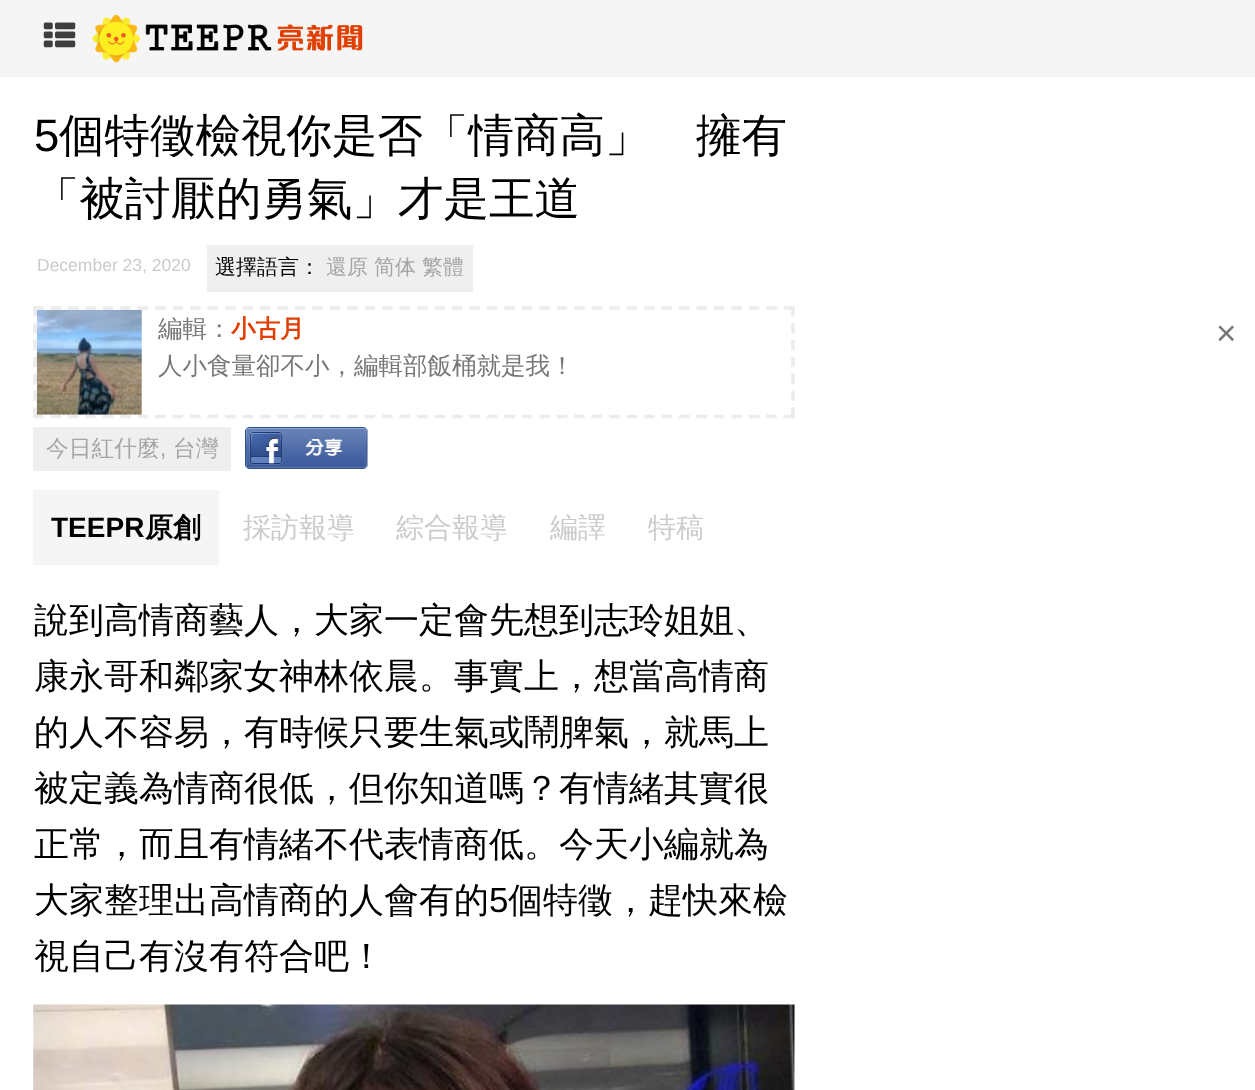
<svg xmlns="http://www.w3.org/2000/svg" width="1255" height="1090">
	<rect width="100%" height="100%" fill="#FFFFFF" />
	<rect x="0" y="0" width="1255" height="77" fill="#F5F5F5" />
	<image x="43" y="22" width="33" height="26" href="assets/img1.png" />
	<image x="92" y="14" width="271" height="49" href="assets/img2.png" />
	<text x="34" y="151" font-family="Liberation Sans" font-size="45.5" fill="#000000">5</text>
	<g font-family="WenQuanYi Zen Hei" font-size="45.5" font-weight="500" fill="#000000">
		<text x="59" y="151">個特徵檢視你是否「情商高」　擁有</text>
		<text x="34" y="214">「被討厭的勇氣」才是王道</text>
	</g>
	<text x="37" y="271" font-family="Liberation Sans" font-size="17.5" fill="#CBCBCB">December 23, 2020</text>
	<rect x="207" y="245" width="266" height="47" fill="#EFEFEF" />
	<text x="215" y="274" font-family="WenQuanYi Zen Hei" font-size="21" font-weight="500" fill="#000000">選擇語言：</text>
	<g font-family="WenQuanYi Zen Hei" font-size="21" font-weight="500" fill="#A5A5A5">
		<text x="326" y="274">還原</text>
		<text x="374" y="274">简体</text>
		<text x="422" y="274">繁體</text>
	</g>
	<path d="M33 308H794.5" fill="none" stroke="#ECECEC" stroke-width="3.5" stroke-dasharray="10.5 6.96" />
	<path d="M793 306V418" fill="none" stroke="#ECECEC" stroke-width="3.5" stroke-dasharray="10.5 6.42" />
	<path d="M33 416.5H794.5" fill="none" stroke="#ECECEC" stroke-width="3.5" stroke-dasharray="10.5 6.96" />
	<path d="M35 306V418" fill="none" stroke="#ECECEC" stroke-width="3.5" stroke-dasharray="10.5 6.42" />
	<image x="36" y="309" width="106" height="106" href="assets/img3.png" />
	<text x="158" y="337" font-family="WenQuanYi Zen Hei" font-size="24.5" font-weight="500" fill="#777777">編輯：</text>
	<text x="231" y="337" font-family="WenQuanYi Zen Hei" font-size="24.5" font-weight="700" fill="#E03F00">小古月</text>
	<text x="158" y="374" font-family="WenQuanYi Zen Hei" font-size="24.5" font-weight="500" fill="#777777">人小食量卻不小，編輯部飯桶就是我！</text>
	<rect x="33" y="427" width="198" height="44" fill="#EFEFEF" />
	<text x="46" y="456" font-family="WenQuanYi Zen Hei" font-size="22.75" font-weight="500" fill="#A5A5A5">今日紅什麼</text>
	<text x="160" y="456" font-family="Liberation Sans" font-size="22.75" fill="#A5A5A5">,</text>
	<text x="173" y="456" font-family="WenQuanYi Zen Hei" font-size="22.75" font-weight="500" fill="#A5A5A5">台灣</text>
	<image x="245" y="427" width="123" height="42" href="assets/img4.png" />
	<rect x="33" y="490" width="186" height="75" fill="#F5F5F5" />
	<text x="51" y="537" font-family="Liberation Sans" font-size="28" font-weight="700" fill="#000000">TEEPR</text>
	<text x="145" y="537" font-family="WenQuanYi Zen Hei" font-size="28" font-weight="700" fill="#000000">原創</text>
	<g font-family="WenQuanYi Zen Hei" font-size="28" font-weight="500" fill="#CBCBCB">
		<text x="243" y="537">採訪報導</text>
		<text x="396" y="537">綜合報導</text>
		<text x="550" y="537">編譯</text>
		<text x="648" y="537">特稿</text>
	</g>
	<g font-family="WenQuanYi Zen Hei" font-size="35" font-weight="500" fill="#000000">
		<text x="34" y="632">說到高情商藝人，大家一定會先想到志玲姐姐、</text>
		<text x="34" y="688">康永哥和鄰家女神林依晨。事實上，想當高情商</text>
		<text x="34" y="744">的人不容易，有時候只要生氣或鬧脾氣，就馬上</text>
		<text x="34" y="800">被定義為情商很低，但你知道嗎？有情緒其實很</text>
		<text x="34" y="856">正常，而且有情緒不代表情商低。今天小編就為</text>
		<text x="34" y="912">大家整理出高情商的人會有的</text>
	</g>
	<text x="489" y="912" font-family="Liberation Sans" font-size="35" fill="#000000">5</text>
	<g font-family="WenQuanYi Zen Hei" font-size="35" font-weight="500" fill="#000000">
		<text x="508" y="912">個特徵，趕快來檢</text>
		<text x="34" y="968">視自己有沒有符合吧！</text>
	</g>
	<image x="33" y="1004" width="762" height="86" href="assets/img5.png" />
	<text x="1216" y="345" font-family="Liberation Sans" font-size="35" fill="#777777">×</text>
</svg>
